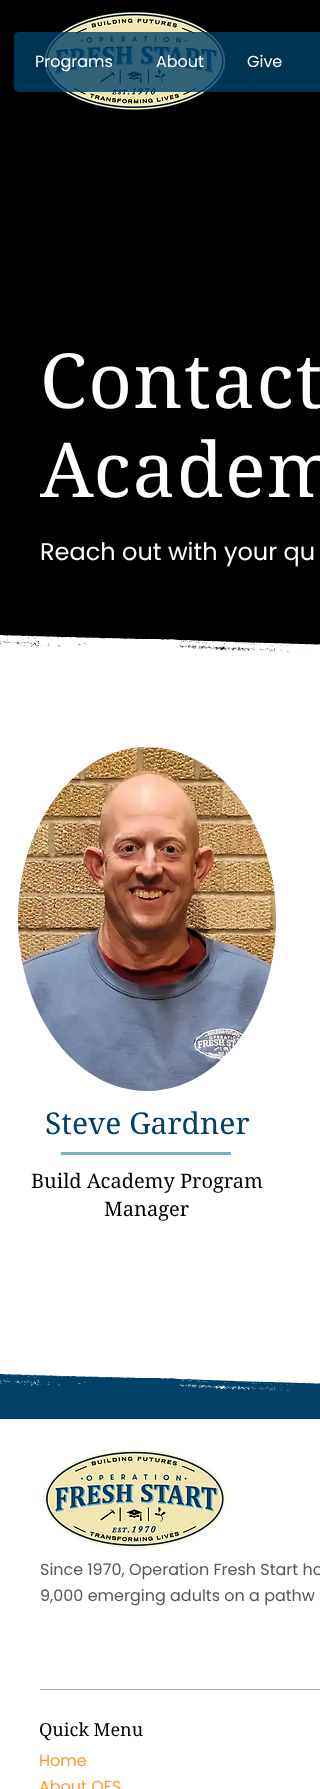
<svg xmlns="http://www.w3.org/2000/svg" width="320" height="1789">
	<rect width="100%" height="100%" fill="#FFFFFF" />
	<rect x="0" y="0" width="320" height="652" fill="#000000" />
	<image x="44" y="12" width="182" height="98" href="assets/img1.png" />
	<rect x="14" y="32" width="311" height="60" rx="5" fill="#00416A" fill-opacity="0.8" />
	<g font-family="Poppins" font-size="16" fill="#FFFFFF">
		<text x="35" y="67">Programs</text>
		<text x="156" y="67">About</text>
		<text x="247" y="67">Give</text>
	</g>
	<g font-family="'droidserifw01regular'" font-size="76" letter-spacing="1.5" fill="#FFFFFF">
		<text x="40" y="408">Contact</text>
		<text x="40" y="497">Academ</text>
	</g>
	<text x="40" y="560" font-family="Poppins" font-size="24" fill="#FFFFFF">Reach out with your qu</text>
	<image x="0" y="635" width="320" height="45" href="assets/img2.png" />
	<image x="18" y="747" width="258" height="344" href="assets/img3.png" />
	<text x="45" y="1134" font-family="'droidserifw01regular'" font-size="30" fill="#00416A">Steve Gardner</text>
	<rect x="61" y="1152" width="170" height="3" fill="#72B1C8" />
	<g font-family="'droidserifw01regular'" font-size="20" fill="#000000">
		<text x="31" y="1188">Build Academy Program</text>
		<text x="104" y="1216">Manager</text>
	</g>
	<image x="0" y="1374" width="320" height="45" href="assets/img4.png" />
	<image x="44" y="1450" width="182" height="98" href="assets/img5.png" />
	<g font-family="Poppins" font-size="16" fill="#575757">
		<text x="40" y="1575">Since 1970, Operation Fresh Start ha</text>
		<text x="40" y="1601">9,000 emerging adults on a pathw</text>
	</g>
	<rect x="40" y="1689" width="280" height="1" fill="#B3B3B3" />
	<text x="39" y="1736" font-family="'droidserifw01regular'" font-size="18" fill="#000000">Quick Menu</text>
	<g font-family="Poppins" font-size="16" fill="#FF9933">
		<text x="39" y="1766">Home</text>
		<text x="39" y="1792">About OFS</text>
	</g>
</svg>
